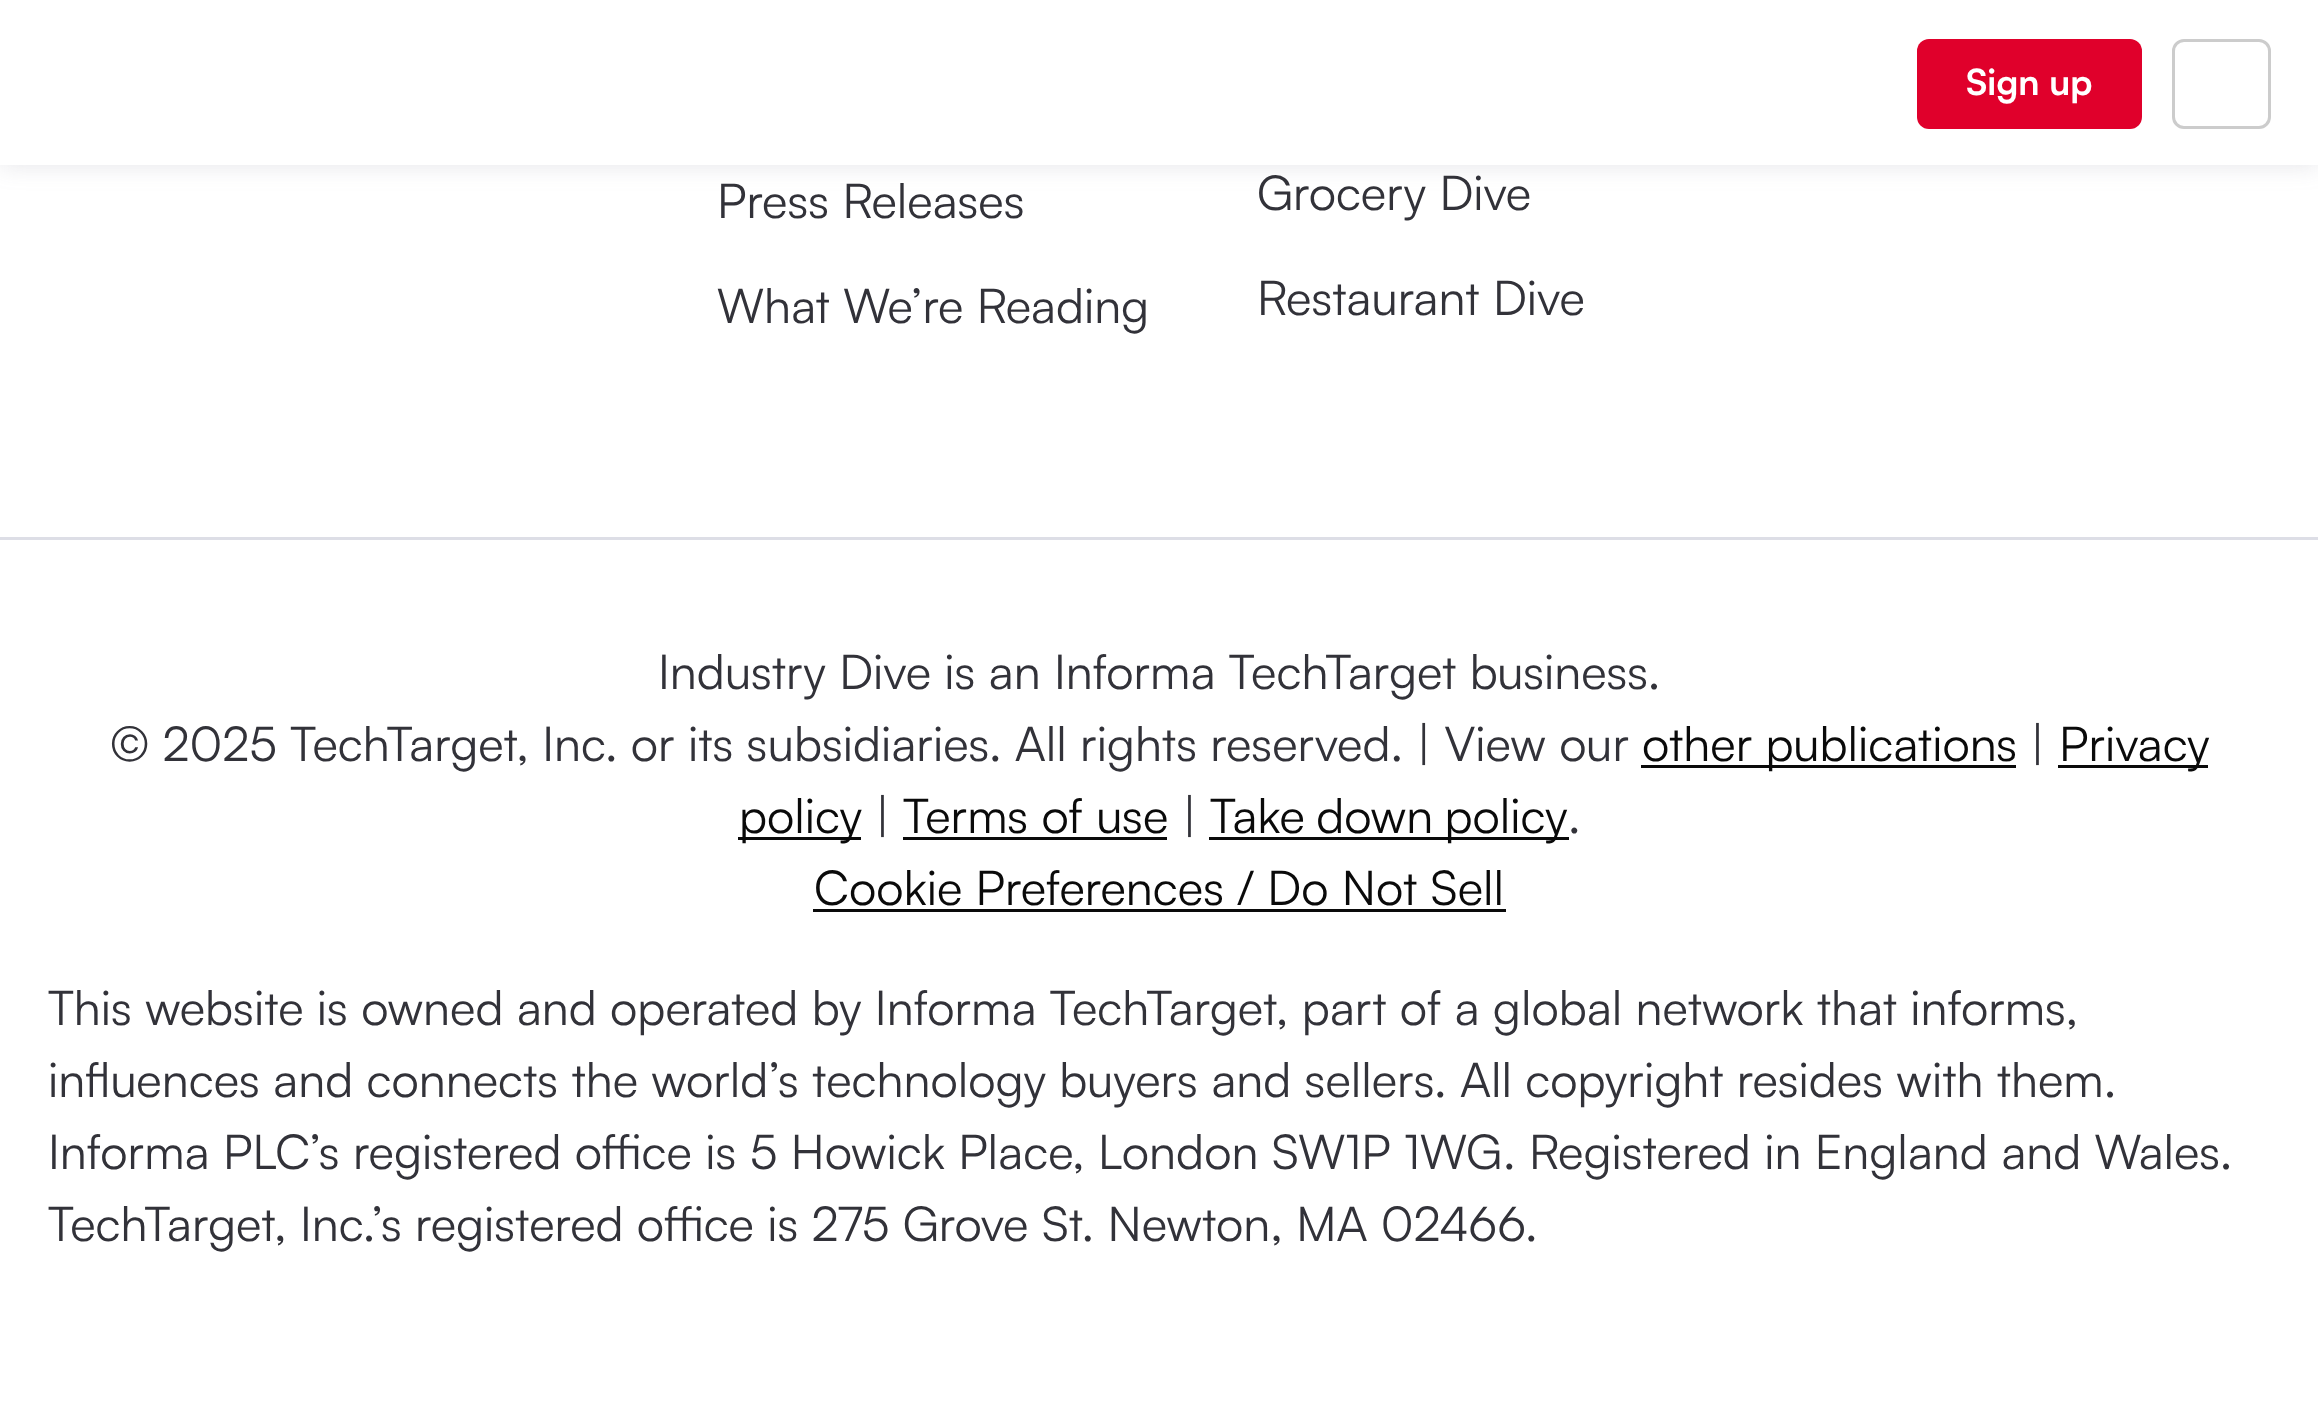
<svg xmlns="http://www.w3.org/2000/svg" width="2318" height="1402">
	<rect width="100%" height="100%" fill="#FFFFFF" />
	<rect x="0" y="0" width="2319" height="165" fill="#78788C" fill-opacity="0.2" filter="blur(12px)" />
	<rect x="0" y="0" width="2318" height="165" fill="#FFFFFF" />
	<rect x="1917" y="39" width="225" height="90" rx="12" fill="#E0002B" />
	<text x="1966" y="95" font-family="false" font-size="36" font-weight="700" fill="#FFFFFF">Sign up</text>
	<rect x="2173.5" y="40.5" width="96" height="87" rx="10.5" fill="none" stroke="#CCCCCC" stroke-width="3" />
	<g font-family="false" font-size="48" fill="#323239">
		<text x="717" y="218">Press Releases</text>
		<text x="717" y="323">What We’re Reading</text>
		<text x="1257" y="210">Grocery Dive</text>
		<text x="1257" y="315">Restaurant Dive</text>
	</g>
	<rect x="0" y="537" width="2318" height="3" fill="#DDDEE6" />
	<g font-family="false" font-size="48" fill="#323239">
		<text x="658" y="689">Industry Dive is an Informa TechTarget business.</text>
		<text x="110" y="761">© 2025 TechTarget, Inc. or its subsidiaries. All rights reserved. | View our</text>
	</g>
	<rect x="1641" y="765" width="375" height="3" fill="#0A0A0A" />
	<text x="1642" y="761" font-family="false" font-size="48" fill="#0A0A0A">other publications</text>
	<text x="2030" y="761" font-family="false" font-size="48" fill="#323239">|</text>
	<rect x="2058" y="765" width="150" height="3" fill="#0A0A0A" />
	<text x="2059" y="761" font-family="false" font-size="48" fill="#0A0A0A">Privacy</text>
	<rect x="738" y="837" width="123" height="3" fill="#0A0A0A" />
	<text x="739" y="833" font-family="false" font-size="48" fill="#0A0A0A">policy</text>
	<text x="875" y="833" font-family="false" font-size="48" fill="#323239">|</text>
	<text x="903" y="833" font-family="false" font-size="48" fill="#0A0A0A">Terms of use</text>
	<rect x="903" y="837" width="264" height="3" fill="#0A0A0A" />
	<text x="1182" y="833" font-family="false" font-size="48" fill="#323239">|</text>
	<rect x="1209" y="837" width="360" height="3" fill="#0A0A0A" />
	<text x="1210" y="833" word-spacing="-2" font-family="false" font-size="48" fill="#0A0A0A">Take down policy</text>
	<text x="1568" y="833" font-family="false" font-size="48" fill="#323239">.</text>
	<text x="814" y="905" font-family="false" font-size="48" fill="#0A0A0A">Cookie Preferences / Do Not Sell</text>
	<rect x="813" y="909" width="693" height="3" fill="#0A0A0A" />
	<g font-family="false" font-size="48" fill="#323239">
		<text x="48" y="1025">This website is owned and operated by Informa TechTarget, part of a global network that informs,</text>
		<text x="48" y="1097">influences and connects the world’s technology buyers and sellers. All copyright resides with them.</text>
		<text x="48" y="1169">Informa PLC’s registered office is 5 Howick Place, London SW1P 1WG. Registered in England and Wales.</text>
		<text x="48" y="1241">TechTarget, Inc.’s registered office is 275 Grove St. Newton, MA 02466.</text>
	</g>
</svg>
